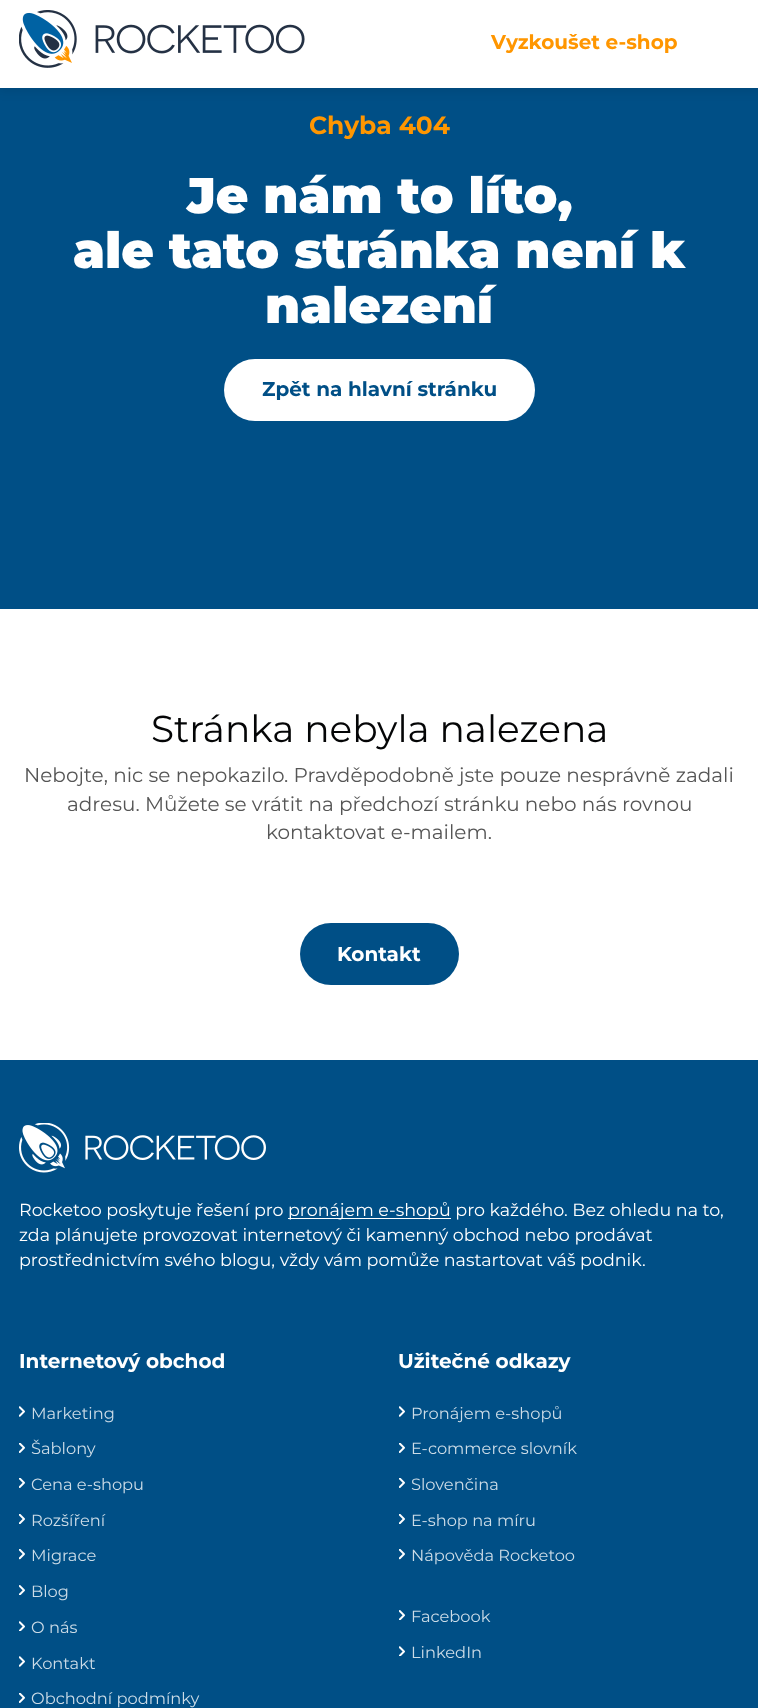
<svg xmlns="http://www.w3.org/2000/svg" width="758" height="1708">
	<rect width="100%" height="100%" fill="#FFFFFF" />
	<rect x="0" y="88" width="758" height="521" fill="#004F86" />
	<rect x="-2" y="-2" width="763" height="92" fill="#000000" fill-opacity="0.1" filter="blur(6px)" />
	<rect x="0" y="0" width="758" height="88" fill="#FFFFFF" />
	<image x="19" y="10" width="286" height="58" href="assets/img1.png" />
	<text x="491" y="49" font-family="Montserrat" font-size="20" font-weight="700" fill="#FF9600">Vyzkoušet e-shop</text>
	<text x="309" y="134" font-family="Montserrat" font-size="25" font-weight="700" fill="#FF9600">Chyba 404</text>
	<g font-family="Montserrat" font-size="50" font-weight="900" fill="#FFFFFF">
		<text x="187" y="213">Je nám to líto,</text>
		<text x="73" y="268">ale tato stránka není k</text>
		<text x="265" y="323">nalezení</text>
	</g>
	<rect x="224" y="359" width="311" height="62" rx="31" fill="#FFFFFF" />
	<text x="262" y="396" font-family="Montserrat" font-size="20" font-weight="700" fill="#004F86">Zpět na hlavní stránku</text>
	<text x="151" y="742" font-family="Montserrat" font-size="37.5" fill="#040506">Stránka nebyla nalezena</text>
	<g font-family="Montserrat" font-size="20" fill="#555555">
		<text x="24" y="782">Nebojte, nic se nepokazilo. Pravděpodobně jste pouze nesprávně zadali</text>
		<text x="67" y="811">adresu. Můžete se vrátit na předchozí stránku nebo nás rovnou</text>
		<text x="266" y="839">kontaktovat e-mailem.</text>
	</g>
	<rect x="300" y="923" width="159" height="62" rx="31" fill="#004F86" />
	<text x="337" y="961" font-family="Montserrat" font-size="20" font-weight="700" fill="#FFFFFF">Kontakt</text>
	<rect x="0" y="1060" width="758" height="648" fill="#004F86" />
	<image x="19" y="1123" width="247" height="50" href="assets/img2.png" />
	<text x="19" y="1216" font-family="Montserrat" font-size="17.5" fill="#FFFFFF">Rocketoo poskytuje řešení pro</text>
	<rect x="288" y="1218" width="163" height="1" fill="#FFFFFF" />
	<g font-family="Montserrat" font-size="17.5" fill="#FFFFFF">
		<text x="288" y="1216">pronájem e-shopů pro každého. Bez ohledu na to,</text>
		<text x="19" y="1241">zda plánujete provozovat internetový či kamenný obchod nebo prodávat</text>
		<text x="19" y="1266">prostřednictvím svého blogu, vždy vám pomůže nastartovat váš podnik.</text>
	</g>
	<text x="19" y="1368" font-family="Montserrat" font-size="20" font-weight="700" fill="#FFFFFF">Internetový obchod</text>
	<image x="19" y="1406" width="6" height="11" href="assets/img3.png" />
	<text x="31" y="1419" font-family="Montserrat" font-size="16.25" fill="#CCDCE7">Marketing</text>
	<image x="19" y="1443" width="6" height="10" href="assets/img4.png" />
	<text x="31" y="1454" font-family="Montserrat" font-size="16.25" fill="#CCDCE7">Šablony</text>
	<image x="19" y="1478" width="6" height="10" href="assets/img4.png" />
	<text x="31" y="1490" font-family="Montserrat" font-size="16.25" fill="#CCDCE7">Cena e-shopu</text>
	<image x="19" y="1514" width="6" height="10" href="assets/img5.png" />
	<text x="31" y="1526" font-family="Montserrat" font-size="16.25" fill="#CCDCE7">Rozšíření</text>
	<image x="19" y="1549" width="6" height="11" href="assets/img6.png" />
	<text x="31" y="1561" font-family="Montserrat" font-size="16.25" fill="#CCDCE7">Migrace</text>
	<image x="19" y="1585" width="6" height="10" href="assets/img7.png" />
	<text x="31" y="1597" font-family="Montserrat" font-size="16.25" fill="#CCDCE7">Blog</text>
	<image x="19" y="1621" width="6" height="10" href="assets/img8.png" />
	<text x="31" y="1633" font-family="Montserrat" font-size="16.25" fill="#CCDCE7">O nás</text>
	<image x="19" y="1656" width="6" height="11" href="assets/img3.png" />
	<text x="31" y="1669" font-family="Montserrat" font-size="16.25" fill="#CCDCE7">Kontakt</text>
	<image x="19" y="1693" width="6" height="10" href="assets/img4.png" />
	<text x="31" y="1704" font-family="Montserrat" font-size="16.25" fill="#CCDCE7">Obchodní podmínky</text>
	<text x="398" y="1368" font-family="Montserrat" font-size="20" font-weight="700" fill="#FFFFFF">Užitečné odkazy</text>
	<image x="399" y="1406" width="6" height="11" href="assets/img3.png" />
	<text x="411" y="1419" font-family="Montserrat" font-size="16.25" fill="#CCDCE7">Pronájem e-shopů</text>
	<image x="399" y="1443" width="6" height="10" href="assets/img4.png" />
	<text x="411" y="1454" font-family="Montserrat" font-size="16.25" fill="#CCDCE7">E-commerce slovník</text>
	<image x="399" y="1478" width="6" height="10" href="assets/img4.png" />
	<text x="411" y="1490" font-family="Montserrat" font-size="16.25" fill="#CCDCE7">Slovenčina</text>
	<image x="399" y="1514" width="6" height="10" href="assets/img5.png" />
	<text x="411" y="1526" font-family="Montserrat" font-size="16.25" fill="#CCDCE7">E-shop na míru</text>
	<image x="399" y="1549" width="6" height="11" href="assets/img6.png" />
	<text x="411" y="1561" font-family="Montserrat" font-size="16.25" fill="#CCDCE7">Nápověda Rocketoo</text>
	<image x="399" y="1610" width="6" height="10" href="assets/img7.png" />
	<text x="411" y="1622" font-family="Montserrat" font-size="16.25" fill="#CCDCE7">Facebook</text>
	<image x="399" y="1646" width="6" height="10" href="assets/img8.png" />
	<text x="411" y="1658" font-family="Montserrat" font-size="16.25" fill="#CCDCE7">LinkedIn</text>
</svg>
